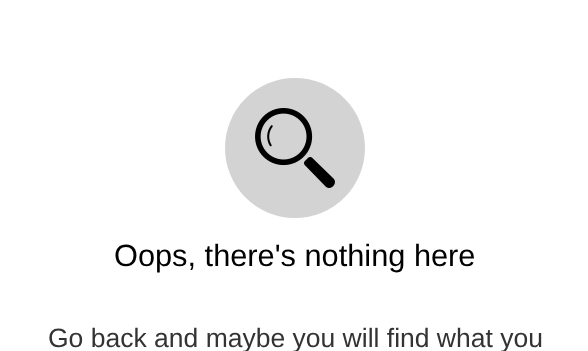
<svg xmlns="http://www.w3.org/2000/svg" width="588" height="351">
	<rect width="100%" height="100%" fill="#FFFFFF" />
	<circle cx="295" cy="148" r="70" fill="#D3D3D3" />
	<image x="255" y="108" width="80" height="80" href="assets/img1.png" />
	<text x="114" y="266" font-family="Liberation Sans" font-size="30.75" fill="#000000">Oops, there's nothing here</text>
	<text x="48" y="347" font-family="Liberation Sans" font-size="26.5" fill="#333333">Go back and maybe you will find what you</text>
</svg>
